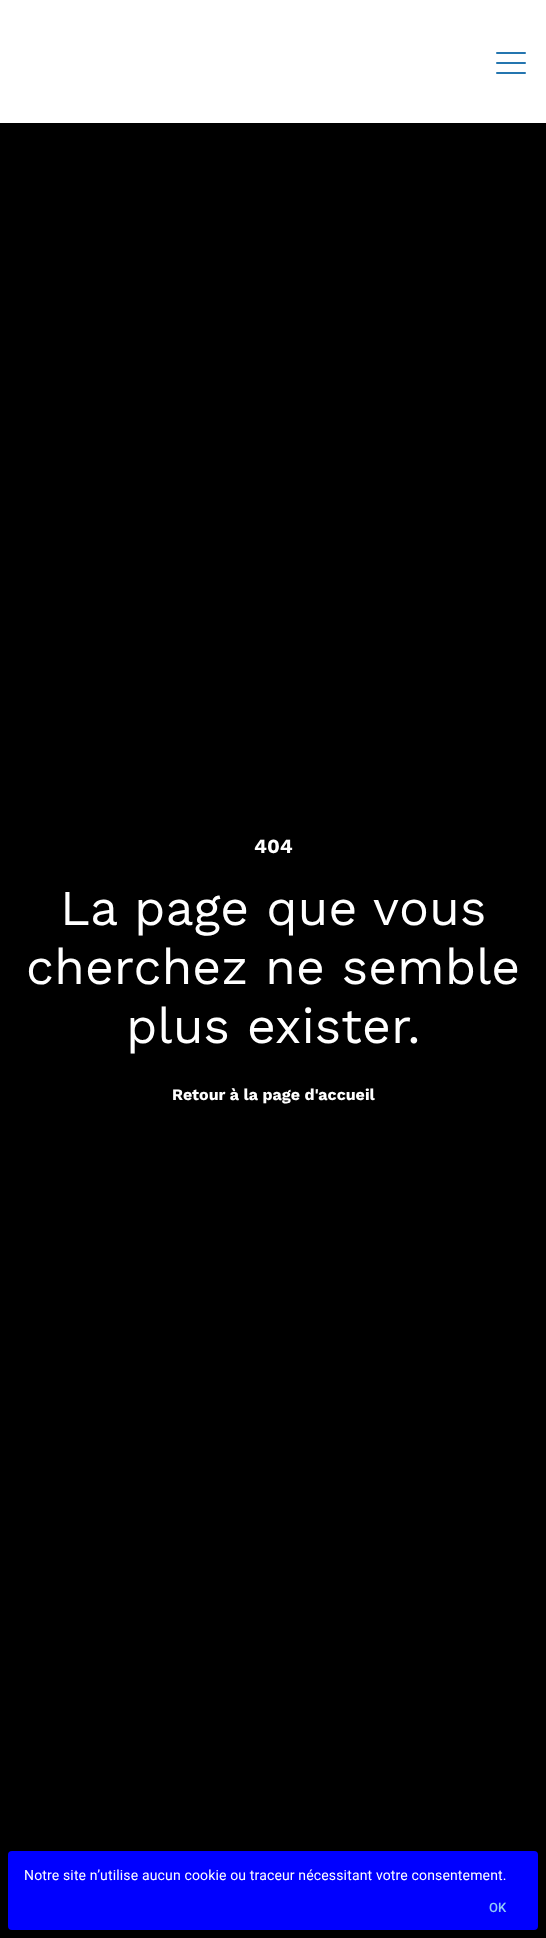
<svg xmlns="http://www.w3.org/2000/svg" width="546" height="1938">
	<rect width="100%" height="100%" fill="#000000" />
	<rect x="0" y="0" width="546" height="123" fill="#FFFFFF" />
	<rect x="496" y="62" width="30" height="2" rx="1" fill="#2475AF" />
	<rect x="496" y="52" width="30" height="2" rx="1" fill="#2475AF" />
	<rect x="496" y="72" width="30" height="2" rx="1" fill="#2475AF" />
	<text x="254" y="853" font-family="Work Sans" font-size="20" font-weight="700" fill="#FFFFFF">404</text>
	<g font-family="Work Sans" font-size="50" fill="#FFFFFF">
		<text x="60" y="925">La page que vous</text>
		<text x="26" y="984">cherchez ne semble</text>
		<text x="126" y="1043">plus exister.</text>
	</g>
	<text x="172" y="1100" font-family="Work Sans" font-size="16" font-weight="700" fill="#FFFFFF">Retour à la page d'accueil</text>
	<rect x="8" y="1851" width="530" height="79" rx="4" fill="#0000FF" />
	<text x="24" y="1880" font-family="Roboto" font-size="14" letter-spacing="0.15" fill="#FFFFFF">Notre site n’utilise aucun cookie ou traceur nécessitant votre consentement.</text>
	<text x="489" y="1912" font-family="Roboto" font-size="13" font-weight="500" fill="#90CAF9">OK</text>
</svg>
